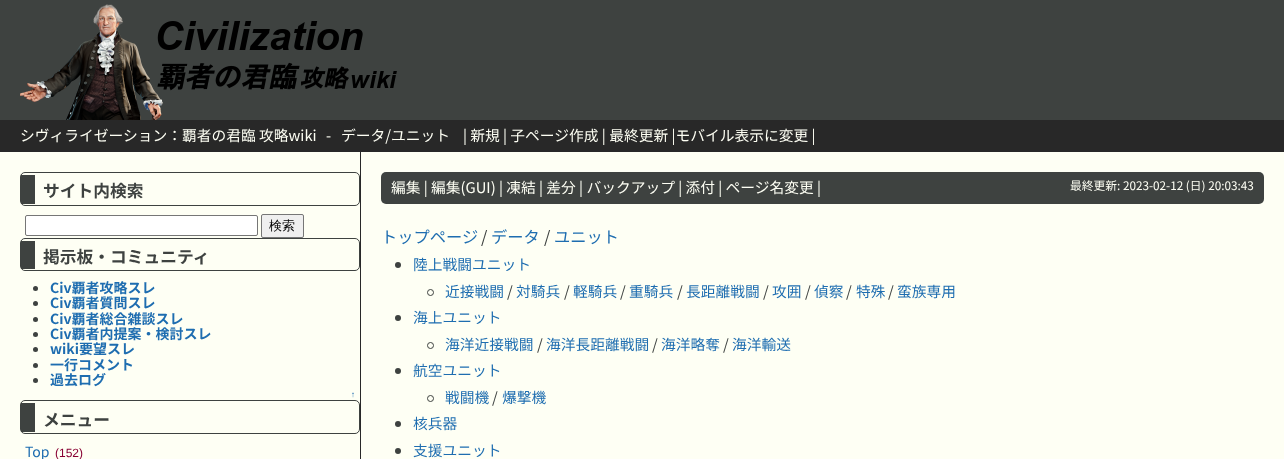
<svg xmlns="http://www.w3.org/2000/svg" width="1284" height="459">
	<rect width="100%" height="100%" fill="#FEFFF4" />
	<rect x="0" y="0" width="1284" height="120" fill="#3E4240" />
	<image x="20" y="4" width="377" height="116" href="assets/img1.png" />
	<rect x="0" y="120" width="1284" height="32" fill="#282828" />
	<g font-family="Noto Sans JP" font-size="14.75" fill="#FEFFF4">
		<text x="20" y="141">シヴィライゼーション：覇者の君臨 攻略wiki</text>
		<text x="326" y="141">-</text>
		<text x="341" y="141">データ/ユニット</text>
		<text x="463" y="141">| 新規 | 子ページ作成 | 最終更新 |モバイル表示に変更 |</text>
	</g>
	<rect x="20.5" y="172.5" width="339" height="33" rx="4.5" fill="none" stroke="#3E4240" />
	<rect x="21" y="175" width="14" height="29" fill="#3E4240" />
	<text x="43" y="197" font-family="Noto Sans JP" font-size="16.75" font-weight="700" fill="#3E4240">サイト内検索</text>
	<rect x="25.5" y="215.5" width="232" height="20" rx="1.5" fill="#FFFFFF" stroke="#767676" />
	<rect x="261.5" y="214.5" width="42" height="23" rx="1.5" fill="#EFEFEF" stroke="#767676" />
	<text x="269" y="230" font-family="WenQuanYi Zen Hei" font-size="13" font-weight="500" fill="#000000">検索</text>
	<rect x="20.5" y="238.5" width="339" height="32" rx="4.5" fill="none" stroke="#3E4240" />
	<rect x="21" y="241" width="14" height="28" fill="#3E4240" />
	<text x="43" y="263" font-family="Noto Sans JP" font-size="16.75" font-weight="700" fill="#3E4240">掲示板・コミュニティ</text>
	<circle cx="35.5" cy="288.5" r="2.5" fill="#3E4240" />
	<text x="50" y="293" font-family="Noto Sans JP" font-size="14" font-weight="700" fill="#1E6DB0">Civ覇者攻略スレ</text>
	<circle cx="35.5" cy="303.5" r="2.5" fill="#3E4240" />
	<text x="50" y="308" font-family="Noto Sans JP" font-size="14" font-weight="700" fill="#1E6DB0">Civ覇者質問スレ</text>
	<circle cx="35.5" cy="319.5" r="2.5" fill="#3E4240" />
	<text x="50" y="324" font-family="Noto Sans JP" font-size="14" font-weight="700" fill="#1E6DB0">Civ覇者総合雑談スレ</text>
	<circle cx="35.5" cy="334.5" r="2.5" fill="#3E4240" />
	<text x="50" y="339" font-family="Noto Sans JP" font-size="14" font-weight="700" fill="#1E6DB0">Civ覇者内提案・検討スレ</text>
	<circle cx="35.5" cy="349.5" r="2.5" fill="#3E4240" />
	<text x="50" y="354" font-family="Noto Sans JP" font-size="14" font-weight="700" fill="#1E6DB0">wiki要望スレ</text>
	<circle cx="35.5" cy="365.5" r="2.5" fill="#3E4240" />
	<text x="50" y="370" font-family="Noto Sans JP" font-size="14" font-weight="700" fill="#1E6DB0">一行コメント</text>
	<circle cx="35.5" cy="380.5" r="2.5" fill="#3E4240" />
	<text x="50" y="385" font-family="Noto Sans JP" font-size="14" font-weight="700" fill="#1E6DB0">過去ログ</text>
	<text x="351" y="397" font-family="Liberation Sans" font-size="8" fill="#1E6DB0">↑</text>
	<rect x="20.5" y="400.5" width="339" height="33" rx="4.5" fill="none" stroke="#3E4240" />
	<rect x="21" y="403" width="14" height="29" fill="#3E4240" />
	<text x="43" y="426" font-family="Noto Sans JP" font-size="16.75" font-weight="700" fill="#3E4240">メニュー</text>
	<text x="25" y="457" font-family="Noto Sans JP" font-size="14" fill="#1E6DB0">Top</text>
	<text x="55" y="457" font-family="Liberation Sans" font-size="12" fill="#880033">(152)</text>
	<rect x="360" y="152" width="1" height="307" fill="#282828" />
	<rect x="381" y="172" width="883" height="32" rx="5" fill="#3E4240" />
	<text x="391" y="193" font-family="Noto Sans JP" font-size="14.75" fill="#FEFFF4">編集 | 編集(GUI) | 凍結 | 差分 | バックアップ | 添付 | ページ名変更 |</text>
	<text x="1070" y="190" font-family="Noto Sans JP" font-size="11.75" fill="#FEFFF4">最終更新: 2023-02-12 (日) 20:03:43</text>
	<text x="381" y="243" font-family="Noto Sans JP" font-size="16.25" fill="#1E6DB0">トップページ</text>
	<text x="481" y="243" font-family="Noto Sans JP" font-size="16.25" fill="#3E4240">/</text>
	<text x="491" y="243" font-family="Noto Sans JP" font-size="16.25" fill="#1E6DB0">データ</text>
	<text x="544" y="243" font-family="Noto Sans JP" font-size="16.25" fill="#3E4240">/</text>
	<text x="554" y="243" font-family="Noto Sans JP" font-size="16.25" fill="#1E6DB0">ユニット</text>
	<circle cx="398" cy="265" r="3" fill="#3E4240" />
	<text x="413" y="270" font-family="Noto Sans JP" font-size="14.75" fill="#1E6DB0">陸上戦闘ユニット</text>
	<circle cx="430.5" cy="292.5" r="3" fill="none" stroke="#3E4240" />
	<text x="445" y="297" font-family="Noto Sans JP" font-size="14.75" fill="#1E6DB0">近接戦闘</text>
	<text x="507" y="297" font-family="Noto Sans JP" font-size="14.75" fill="#3E4240">/</text>
	<text x="516" y="297" font-family="Noto Sans JP" font-size="14.75" fill="#1E6DB0">対騎兵</text>
	<text x="564" y="297" font-family="Noto Sans JP" font-size="14.75" fill="#3E4240">/</text>
	<text x="573" y="297" font-family="Noto Sans JP" font-size="14.75" fill="#1E6DB0">軽騎兵</text>
	<text x="620" y="297" font-family="Noto Sans JP" font-size="14.75" fill="#3E4240">/</text>
	<text x="629" y="297" font-family="Noto Sans JP" font-size="14.75" fill="#1E6DB0">重騎兵</text>
	<text x="677" y="297" font-family="Noto Sans JP" font-size="14.75" fill="#3E4240">/</text>
	<text x="686" y="297" font-family="Noto Sans JP" font-size="14.75" fill="#1E6DB0">長距離戦闘</text>
	<text x="763" y="297" font-family="Noto Sans JP" font-size="14.75" fill="#3E4240">/</text>
	<text x="772" y="297" font-family="Noto Sans JP" font-size="14.75" fill="#1E6DB0">攻囲</text>
	<text x="805" y="297" font-family="Noto Sans JP" font-size="14.75" fill="#3E4240">/</text>
	<text x="814" y="297" font-family="Noto Sans JP" font-size="14.75" fill="#1E6DB0">偵察</text>
	<text x="846" y="297" font-family="Noto Sans JP" font-size="14.75" fill="#3E4240">/</text>
	<text x="856" y="297" font-family="Noto Sans JP" font-size="14.75" fill="#1E6DB0">特殊</text>
	<text x="888" y="297" font-family="Noto Sans JP" font-size="14.75" fill="#3E4240">/</text>
	<text x="897" y="297" font-family="Noto Sans JP" font-size="14.75" fill="#1E6DB0">蛮族専用</text>
	<circle cx="398" cy="318" r="3" fill="#3E4240" />
	<text x="413" y="323" font-family="Noto Sans JP" font-size="14.75" fill="#1E6DB0">海上ユニット</text>
	<circle cx="430.5" cy="345.5" r="3" fill="none" stroke="#3E4240" />
	<text x="445" y="350" font-family="Noto Sans JP" font-size="14.75" fill="#1E6DB0">海洋近接戦闘</text>
	<text x="537" y="350" font-family="Noto Sans JP" font-size="14.75" fill="#3E4240">/</text>
	<text x="546" y="350" font-family="Noto Sans JP" font-size="14.75" fill="#1E6DB0">海洋長距離戦闘</text>
	<text x="652" y="350" font-family="Noto Sans JP" font-size="14.75" fill="#3E4240">/</text>
	<text x="661" y="350" font-family="Noto Sans JP" font-size="14.75" fill="#1E6DB0">海洋略奪</text>
	<text x="723" y="350" font-family="Noto Sans JP" font-size="14.75" fill="#3E4240">/</text>
	<text x="732" y="350" font-family="Noto Sans JP" font-size="14.75" fill="#1E6DB0">海洋輸送</text>
	<circle cx="398" cy="371" r="3" fill="#3E4240" />
	<text x="413" y="376" font-family="Noto Sans JP" font-size="14.75" fill="#1E6DB0">航空ユニット</text>
	<circle cx="430.5" cy="398.5" r="3" fill="none" stroke="#3E4240" />
	<text x="445" y="403" font-family="Noto Sans JP" font-size="14.75" fill="#1E6DB0">戦闘機</text>
	<text x="492" y="403" font-family="Noto Sans JP" font-size="14.75" fill="#3E4240">/</text>
	<text x="502" y="403" font-family="Noto Sans JP" font-size="14.75" fill="#1E6DB0">爆撃機</text>
	<circle cx="398" cy="424" r="3" fill="#3E4240" />
	<text x="413" y="429" font-family="Noto Sans JP" font-size="14.75" fill="#1E6DB0">核兵器</text>
	<circle cx="398" cy="451" r="3" fill="#3E4240" />
	<text x="413" y="456" font-family="Noto Sans JP" font-size="14.75" fill="#1E6DB0">支援ユニット</text>
</svg>
